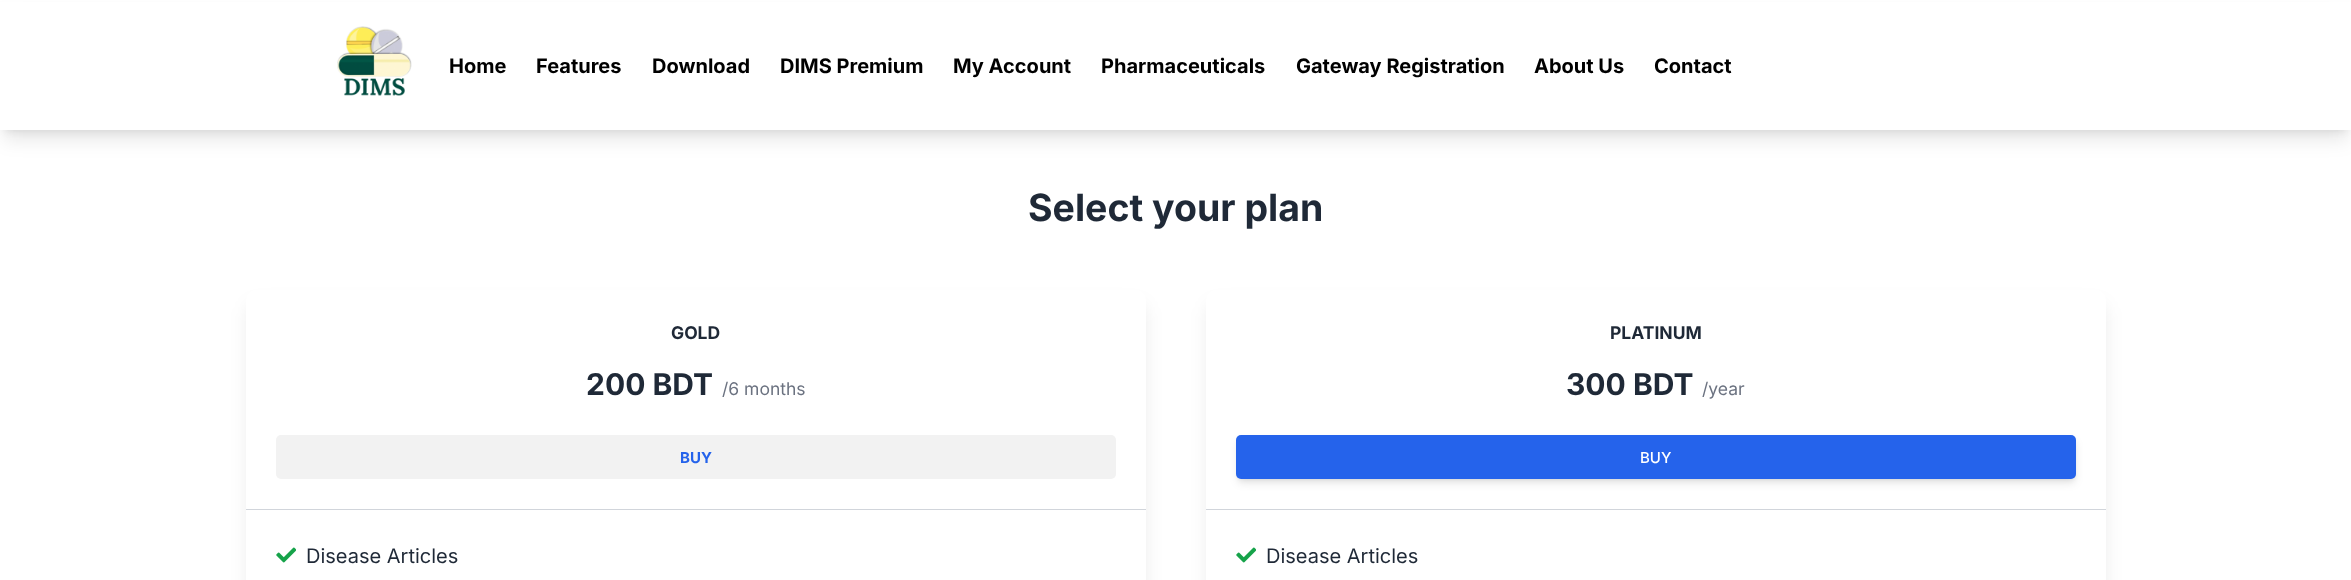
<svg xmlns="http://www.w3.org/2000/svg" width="2351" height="580">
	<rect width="100%" height="100%" fill="#FFFFFF" />
	<rect x="5" y="10" width="2341" height="120" fill="#000000" fill-opacity="0.1" filter="blur(4px)" />
	<rect x="4" y="16" width="2344" height="123" fill="#000000" fill-opacity="0.1" filter="blur(9.5px)" />
	<rect x="0" y="2" width="2351" height="128" fill="#FFFFFF" />
	<image x="337" y="26" width="75" height="70" href="assets/img1.png" />
	<g font-family="Inter" font-size="20" font-weight="700" fill="#000000">
		<text x="449" y="73">Home</text>
		<text x="536" y="73">Features</text>
		<text x="652" y="73">Download</text>
		<text x="780" y="73">DIMS Premium</text>
		<text x="953" y="73">My Account</text>
		<text x="1101" y="73">Pharmaceuticals</text>
		<text x="1296" y="73">Gateway Registration</text>
		<text x="1534" y="73">About Us</text>
		<text x="1654" y="73">Contact</text>
	</g>
	<text x="1028" y="221" font-family="Inter" font-size="37.5" font-weight="700" fill="#1F2937">Select your plan</text>
	<rect x="250" y="306" width="893" height="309" rx="6" fill="#000000" fill-opacity="0.1" filter="blur(9.5px)" />
	<rect x="246" y="290" width="900" height="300" rx="10" fill="#FFFFFF" />
	<rect x="246" y="509" width="900" height="1" fill="#D1D5DB" />
	<text x="671" y="339" font-family="Inter" font-size="17.5" font-weight="700" fill="#1F2937">GOLD</text>
	<text x="586" y="395" font-family="Inter" font-size="30" font-weight="700" fill="#1F2937">200 BDT</text>
	<text x="722" y="395" font-family="Inter" font-size="17.5" fill="#6B7280">/6 months</text>
	<rect x="276" y="435" width="840" height="44" rx="5" fill="#F2F2F2" />
	<text x="680" y="463" font-family="Inter" font-size="15" font-weight="700" fill="#2563EB">BUY</text>
	<image x="276" y="547" width="20" height="16" href="assets/img2.png" />
	<text x="306" y="563" font-family="Inter" font-size="20" fill="#1F2937">Disease Articles</text>
	<rect x="1210" y="306" width="893" height="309" rx="6" fill="#000000" fill-opacity="0.1" filter="blur(9.5px)" />
	<rect x="1206" y="290" width="900" height="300" rx="10" fill="#FFFFFF" />
	<rect x="1206" y="509" width="900" height="1" fill="#D1D5DB" />
	<text x="1610" y="339" font-family="Inter" font-size="17.5" font-weight="700" fill="#1F2937">PLATINUM</text>
	<text x="1566" y="395" font-family="Inter" font-size="30" font-weight="700" fill="#1F2937">300 BDT</text>
	<text x="1702" y="395" font-family="Inter" font-size="17.5" fill="#6B7280">/year</text>
	<rect x="1239" y="440" width="835" height="39" rx="2.5" fill="#000000" fill-opacity="0.1" filter="blur(2.5px)" />
	<rect x="1238" y="441" width="837" height="42" rx="4" fill="#000000" fill-opacity="0.1" filter="blur(4px)" />
	<rect x="1236" y="435" width="840" height="44" rx="5" fill="#2563EB" />
	<text x="1640" y="463" font-family="Inter" font-size="15" font-weight="500" fill="#FFFFFF">BUY</text>
	<image x="1236" y="547" width="20" height="16" href="assets/img2.png" />
	<text x="1266" y="563" font-family="Inter" font-size="20" fill="#1F2937">Disease Articles</text>
</svg>
